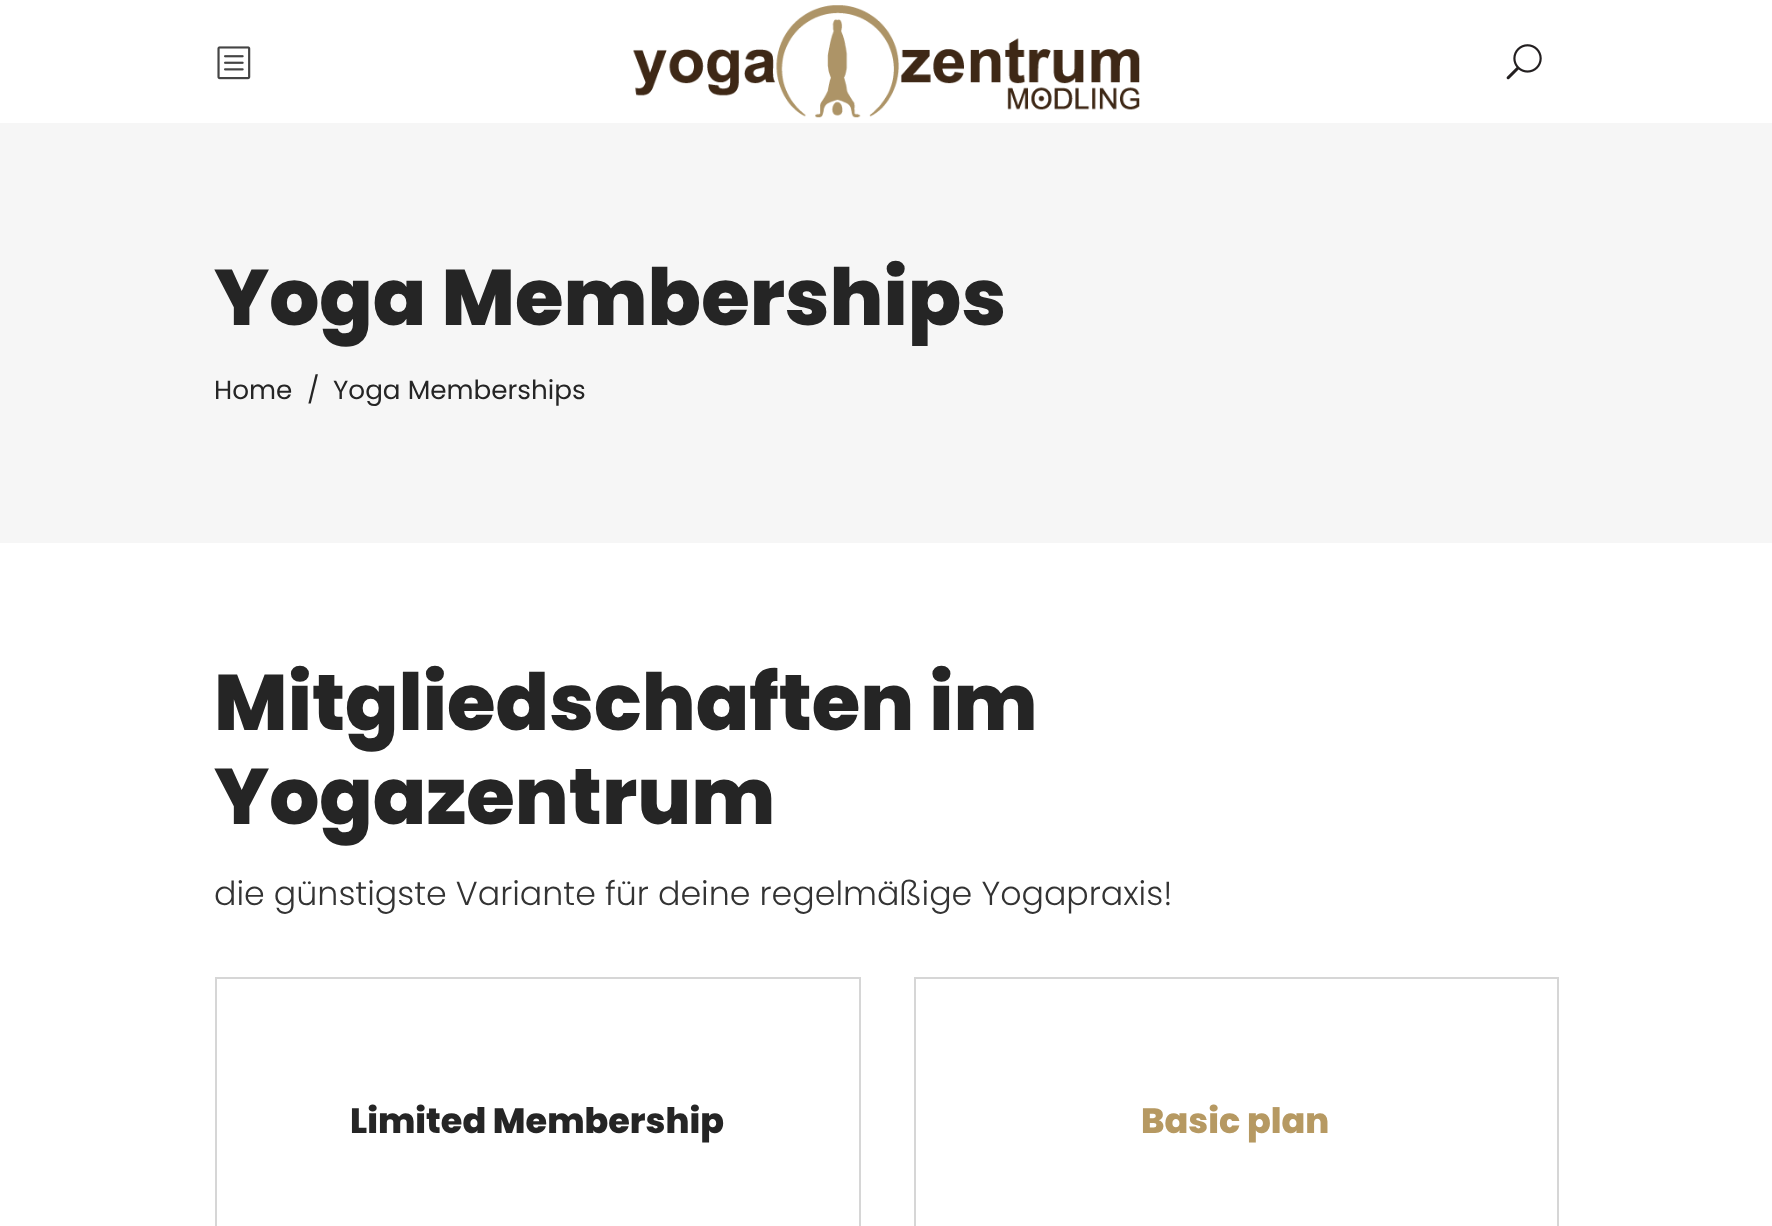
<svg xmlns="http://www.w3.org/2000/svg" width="1772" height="1226">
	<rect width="100%" height="100%" fill="#FFFFFF" />
	<image x="217" y="46" width="34" height="34" href="assets/img1.png" />
	<image x="633" y="5" width="507" height="113" href="assets/img2.png" />
	<image x="1506" y="44" width="36" height="36" href="assets/img3.png" />
	<rect x="0" y="123" width="1772" height="420" fill="#F6F6F6" />
	<text x="214" y="325" font-family="Poppins" font-size="78.75" font-weight="800" fill="#252525">Yoga Memberships</text>
	<g font-family="Poppins" font-size="26.25" fill="#252525">
		<text x="214" y="399">Home</text>
		<text x="307" y="399">/</text>
		<text x="333" y="399">Yoga Memberships</text>
	</g>
	<g font-family="Poppins" font-size="78.75" font-weight="800" fill="#252525">
		<text x="214" y="730">Mitgliedschaften im</text>
		<text x="214" y="824">Yogazentrum</text>
	</g>
	<text x="214" y="905" font-family="Poppins" font-size="33.25" font-weight="300" fill="#333333">die günstigste Variante für deine regelmäßige Yogapraxis!</text>
	<rect x="216" y="978" width="644" height="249" fill="none" stroke="#D6D6D6" stroke-width="2" />
	<text x="350" y="1133" font-family="Poppins" font-size="35" font-weight="800" fill="#252525">Limited Membership</text>
	<rect x="915" y="978" width="643" height="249" fill="none" stroke="#D6D6D6" stroke-width="2" />
	<text x="1141" y="1133" font-family="Poppins" font-size="35" font-weight="800" fill="#B69962">Basic plan</text>
</svg>
